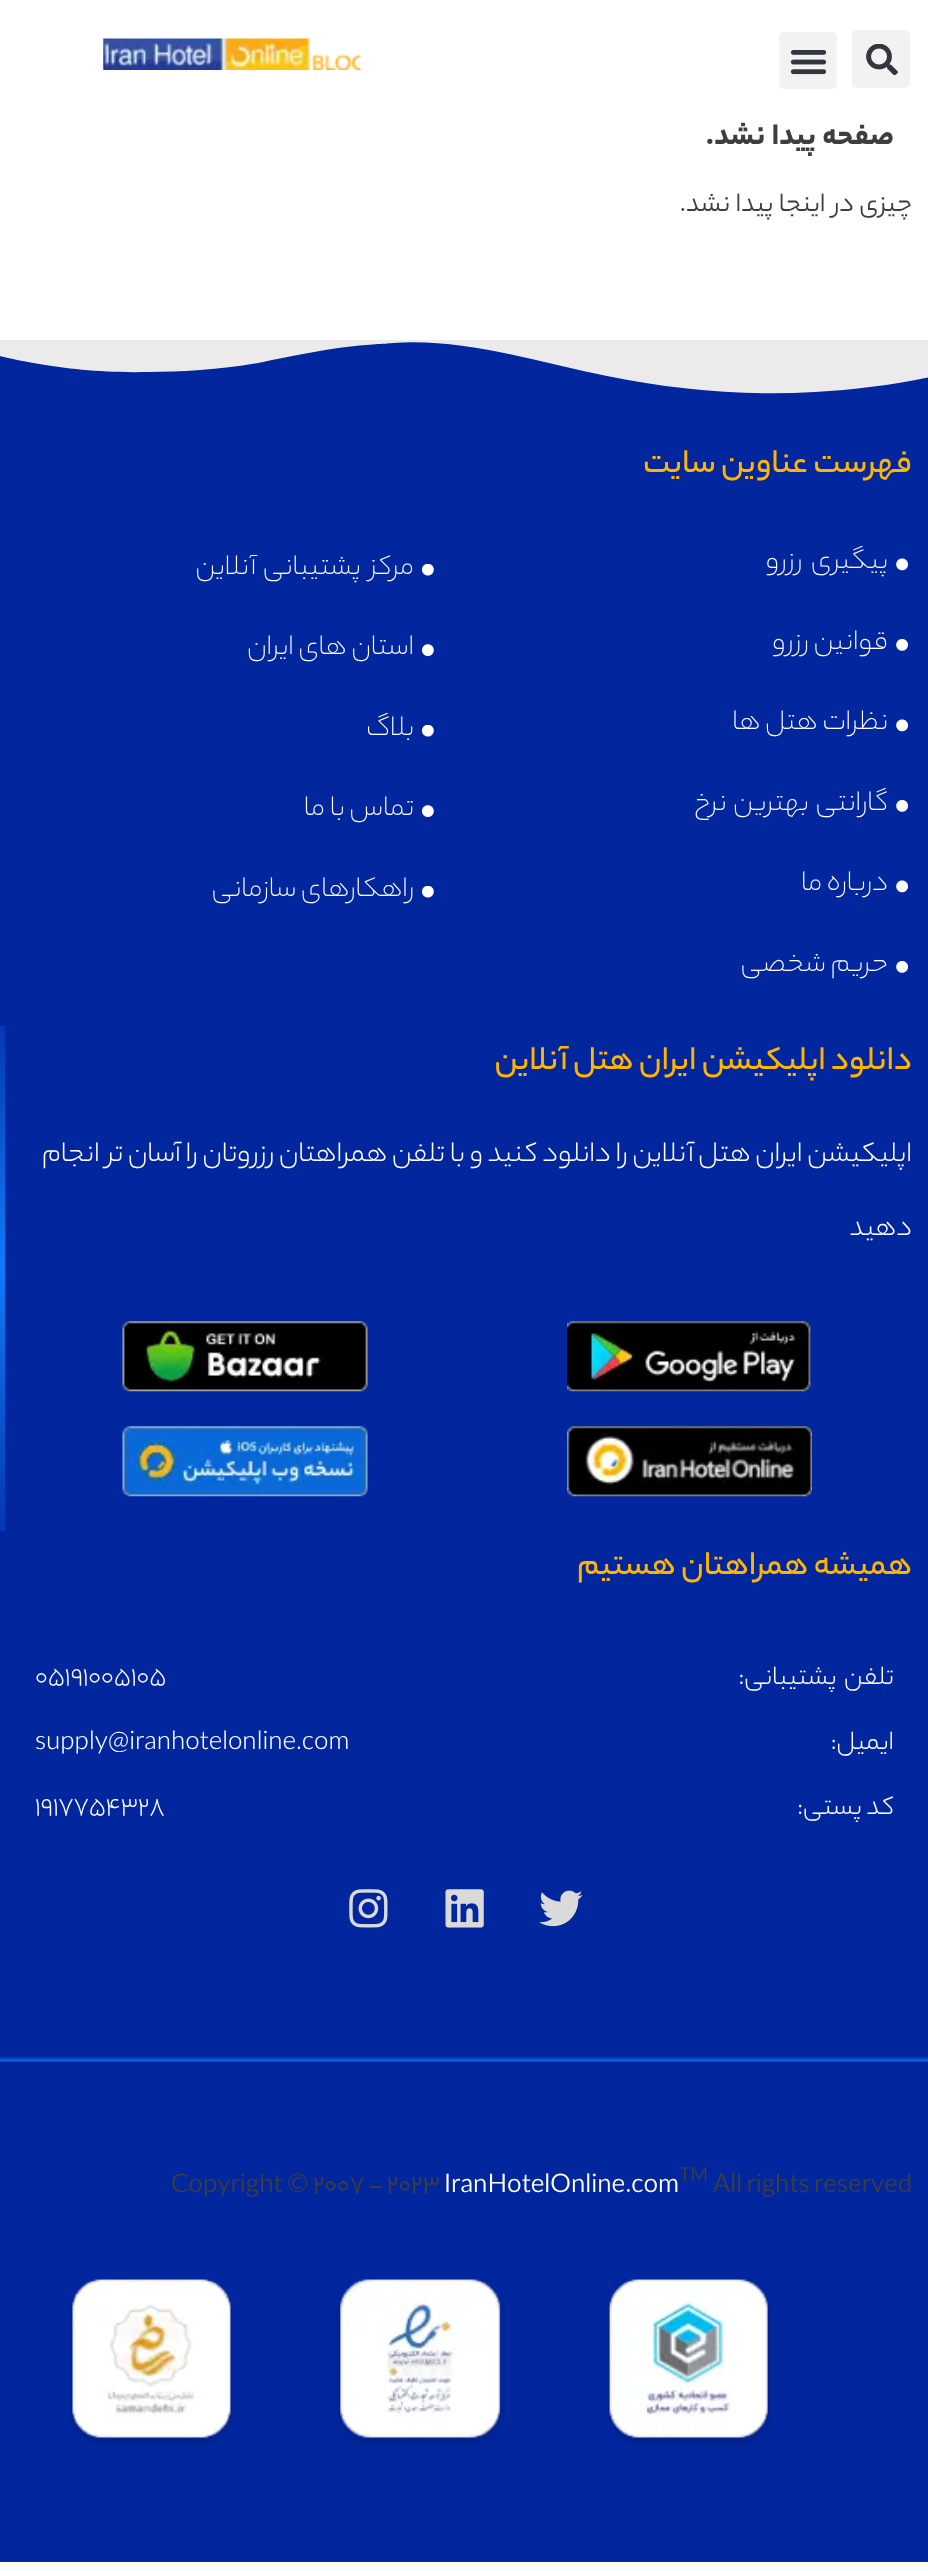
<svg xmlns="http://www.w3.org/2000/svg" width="928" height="2571">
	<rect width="100%" height="100%" fill="#FFFFFF" />
	<rect x="852" y="30" width="58" height="58" rx="5" fill="#F2F2F2" />
	<image x="866" y="44" width="32" height="31" href="assets/img1.png" />
	<rect x="779" y="32" width="58" height="57" rx="5" fill="#F2F2F2" />
	<image x="790" y="50" width="37" height="25" href="assets/img2.png" />
	<image x="103" y="38" width="258" height="32" href="assets/img3.png" />
	<text x="894" y="144" word-spacing="2" font-family="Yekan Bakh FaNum" font-size="31.5" font-weight="900" direction="rtl" fill="#3E3E3E">صفحه پیدا نشد.</text>
	<text x="912" y="211" word-spacing="1" font-family="Yekan Bakh FaNum" font-size="28" direction="rtl" fill="#3E3E3E">چیزی در اینجا پیدا نشد.</text>
	<rect x="0" y="342" width="928" height="2220" fill="#02269E" />
	<path d="M393 343C466 338 536 362 607 376C675 390 745 396 815 392C854 390 893 385 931 377V340H0V356C0 356 67 374 147 372C184 372 234 369 272 360C292 356 321 350 346 347C372 344 383 344 393 343Z" fill="#EBEBEB" />
	<text x="912" y="472" font-family="Yekan Bakh FaNum" font-size="35" font-weight="500" direction="rtl" fill="#FFB500">فهرست عناوین سایت</text>
	<image x="896" y="558" width="12" height="13" href="assets/img4.png" />
	<text x="888" y="568" word-spacing="4" font-family="Yekan Bakh FaNum" font-size="29.75" font-weight="100" direction="rtl" fill="#FFFFFF">پیگیری رزرو</text>
	<image x="896" y="639" width="12" height="12" href="assets/img5.png" />
	<text x="888" y="649" font-family="Yekan Bakh FaNum" font-size="29.75" font-weight="100" direction="rtl" fill="#FFFFFF">قوانین رزرو</text>
	<image x="896" y="719" width="12" height="13" href="assets/img4.png" />
	<text x="888" y="729" font-family="Yekan Bakh FaNum" font-size="29.75" font-weight="100" direction="rtl" fill="#FFFFFF">نظرات هتل ها</text>
	<image x="896" y="800" width="12" height="12" href="assets/img5.png" />
	<text x="888" y="810" word-spacing="2" font-family="Yekan Bakh FaNum" font-size="29.75" font-weight="100" direction="rtl" fill="#FFFFFF">گارانتی بهترین نرخ</text>
	<image x="896" y="880" width="12" height="13" href="assets/img4.png" />
	<text x="888" y="890" font-family="Yekan Bakh FaNum" font-size="29.75" font-weight="100" direction="rtl" fill="#FFFFFF">درباره ما</text>
	<image x="896" y="961" width="12" height="12" href="assets/img5.png" />
	<text x="888" y="971" font-family="Yekan Bakh FaNum" font-size="29.75" font-weight="100" direction="rtl" fill="#FFFFFF">حریم شخصی</text>
	<image x="422" y="564" width="12" height="12" href="assets/img6.png" />
	<text x="414" y="574" word-spacing="2" font-family="Yekan Bakh FaNum" font-size="29.75" font-weight="100" direction="rtl" fill="#FFFFFF">مرکز پشتیبانی آنلاین</text>
	<image x="422" y="644" width="12" height="12" href="assets/img7.png" />
	<text x="414" y="654" font-family="Yekan Bakh FaNum" font-size="29.75" font-weight="100" direction="rtl" fill="#FFFFFF">استان های ایران</text>
	<image x="422" y="725" width="12" height="12" href="assets/img6.png" />
	<text x="414" y="735" font-family="Yekan Bakh FaNum" font-size="29.75" font-weight="100" direction="rtl" fill="#FFFFFF">بلاگ</text>
	<image x="422" y="805" width="12" height="12" href="assets/img7.png" />
	<text x="414" y="815" font-family="Yekan Bakh FaNum" font-size="29.75" font-weight="100" direction="rtl" fill="#FFFFFF">تماس با ما</text>
	<image x="422" y="886" width="12" height="12" href="assets/img6.png" />
	<text x="414" y="896" font-family="Yekan Bakh FaNum" font-size="29.75" font-weight="100" direction="rtl" fill="#FFFFFF">راهکارهای سازمانی</text>
	<image x="0" y="1025" width="6" height="507" href="assets/img8.png" />
	<text x="912" y="1069" font-family="Yekan Bakh FaNum" font-size="35" font-weight="500" direction="rtl" fill="#FFB500">دانلود اپلیکیشن ایران هتل آنلاین</text>
	<g font-family="Yekan Bakh FaNum" font-size="29.75" font-weight="300" direction="rtl" fill="#FFFFFF">
		<text x="912" y="1161">اپلیکیشن ایران هتل آنلاین را دانلود کنید</text>
		<text x="483" y="1161">و با تلفن همراهتان رزروتان را آسان تر انجام</text>
		<text x="912" y="1235">دهید</text>
	</g>
	<image x="567" y="1321" width="244" height="71" href="assets/img9.png" />
	<image x="567" y="1426" width="245" height="71" href="assets/img10.png" />
	<image x="122" y="1321" width="246" height="71" href="assets/img11.png" />
	<image x="122" y="1426" width="246" height="71" href="assets/img12.png" />
	<text x="912" y="1574" font-family="Yekan Bakh FaNum" font-size="35" font-weight="500" direction="rtl" fill="#FFB500">همیشه همراهتان هستیم</text>
	<text x="894" y="1684" word-spacing="3" font-family="Yekan Bakh FaNum" font-size="28" font-weight="300" direction="rtl" fill="#FFFFFF">تلفن پشتیبانی:</text>
	<text x="35" y="1684" font-family="Yekan Bakh FaNum" font-size="28" font-weight="300" fill="#FFFFFF">05191005105</text>
	<text x="894" y="1749" font-family="Yekan Bakh FaNum" font-size="28" font-weight="300" direction="rtl" fill="#FFFFFF">ایمیل:</text>
	<text x="35" y="1749" font-family="Yekan Bakh FaNum" font-size="28" font-weight="300" fill="#FFFFFF">supply@iranhotelonline.com</text>
	<text x="894" y="1814" font-family="Yekan Bakh FaNum" font-size="28" font-weight="300" direction="rtl" fill="#FFFFFF">کد پستی:</text>
	<text x="35" y="1814" font-family="Yekan Bakh FaNum" font-size="28" font-weight="300" fill="#FFFFFF">1917754328</text>
	<image x="539" y="1890" width="44" height="37" href="assets/img13.png" />
	<image x="445" y="1889" width="39" height="39" href="assets/img14.png" />
	<image x="349" y="1889" width="39" height="39" href="assets/img15.png" />
	<image x="0" y="2057" width="928" height="5" href="assets/img16.png" />
	<text x="713" y="2192" font-family="Yekan Bakh FaNum" font-size="28" fill="#3E3E3E">All rights reserved</text>
	<text x="679" y="2181" font-family="Yekan Bakh FaNum" font-size="21" fill="#3E3E3E">TM</text>
	<text x="444" y="2192" font-family="Yekan Bakh FaNum" font-size="28" fill="#FFFFFF">IranHotelOnline.com</text>
	<text x="171" y="2192" font-family="Yekan Bakh FaNum" font-size="28" fill="#3E3E3E">Copyright © 2007 – 2023</text>
	<image x="606" y="2279" width="166" height="168" href="assets/img17.png" />
	<image x="336" y="2279" width="169" height="168" href="assets/img18.png" />
	<image x="69" y="2279" width="165" height="167" href="assets/img19.png" />
</svg>
